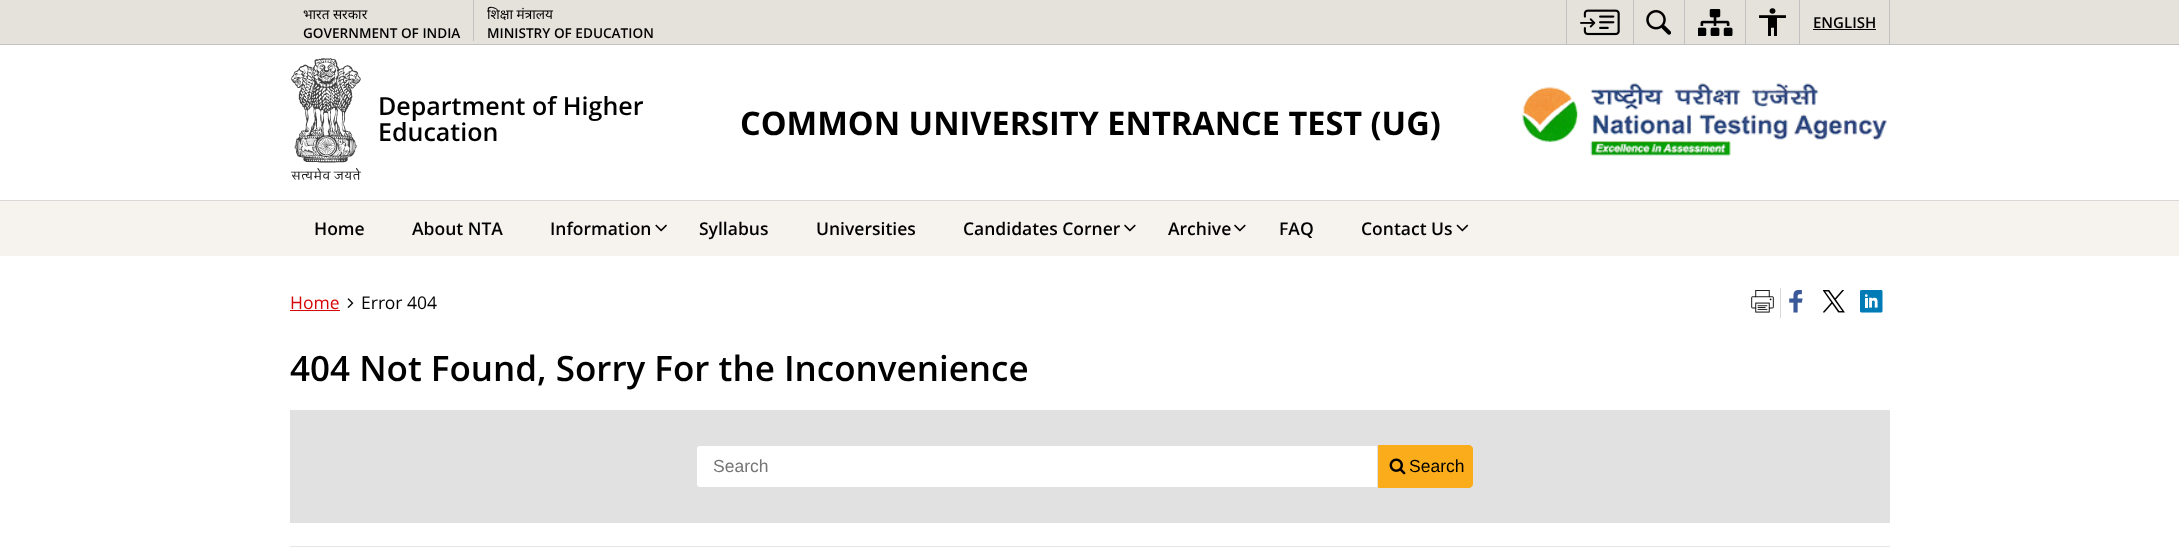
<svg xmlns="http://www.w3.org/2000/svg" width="2179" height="553">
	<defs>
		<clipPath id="clip1"><rect x="290" y="410" width="1600" height="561" /></clipPath>
	</defs>
	<rect width="100%" height="100%" fill="#FFFFFF" />
	<rect x="0" y="0" width="2179" height="44" fill="#E5E2DB" />
	<rect x="0" y="44" width="2179" height="1" fill="#C2C0C1" />
	<rect x="473" y="0" width="1" height="41" fill="#C2C0C1" />
	<text x="303" y="19" font-family="Noto Sans" font-size="13.6" fill="#000000">भारत सरकार</text>
	<text x="303" y="38" font-family="Open Sans" font-size="13.6" font-weight="600" fill="#000000">GOVERNMENT OF INDIA</text>
	<text x="487" y="19" font-family="Noto Sans" font-size="13.6" fill="#000000">शिक्षा मंत्रालय</text>
	<text x="487" y="38" font-family="Open Sans" font-size="13.6" font-weight="600" fill="#000000">MINISTRY OF EDUCATION</text>
	<rect x="1566" y="0" width="1" height="44" fill="#C2C0C1" />
	<image x="1580" y="9" width="40" height="27" href="assets/img1.png" />
	<rect x="1633" y="0" width="1" height="44" fill="#C2C0C1" />
	<image x="1646" y="10" width="25" height="25" href="assets/img2.png" />
	<rect x="1684" y="0" width="1" height="44" fill="#C2C0C1" />
	<image x="1698" y="9" width="35" height="27" href="assets/img3.png" />
	<rect x="1745" y="0" width="1" height="44" fill="#C2C0C1" />
	<image x="1759" y="8" width="27" height="28" href="assets/img4.png" />
	<rect x="1889" y="0" width="1" height="44" fill="#C2C0C1" />
	<rect x="1799" y="0" width="1" height="44" fill="#C2C0C1" />
	<text x="1813" y="28" font-family="Open Sans" font-size="15" font-weight="600" fill="#000000">ENGLISH</text>
	<rect x="1813" y="29" width="63" height="1" fill="#000000" />
	<image x="291" y="58" width="71" height="122" href="assets/img5.png" />
	<g font-family="Open Sans" font-size="25" font-weight="600" fill="#000000">
		<text x="378" y="115">Department of Higher</text>
		<text x="378" y="141">Education</text>
	</g>
	<text x="740" y="135" font-family="Open Sans" font-size="32.5" font-weight="700" fill="#000000">COMMON UNIVERSITY ENTRANCE TEST (UG)</text>
	<image x="1521" y="82" width="366" height="75" href="assets/img6.png" />
	<rect x="0" y="201" width="2179" height="55" fill="#F6F3EE" />
	<rect x="0" y="200" width="2179" height="1" fill="#D8D8D8" />
	<g font-family="Open Sans" font-size="17.5" font-weight="600" fill="#000000">
		<text x="314" y="235">Home</text>
		<text x="412" y="235">About NTA</text>
		<text x="550" y="235">Information</text>
	</g>
	<image x="655" y="224" width="12" height="8" href="assets/img7.png" />
	<g font-family="Open Sans" font-size="17.5" font-weight="600" fill="#000000">
		<text x="699" y="235">Syllabus</text>
		<text x="816" y="235">Universities</text>
		<text x="963" y="235">Candidates Corner</text>
	</g>
	<image x="1124" y="224" width="12" height="8" href="assets/img8.png" />
	<text x="1168" y="235" font-family="Open Sans" font-size="17.5" font-weight="600" fill="#000000">Archive</text>
	<image x="1234" y="224" width="12" height="8" href="assets/img8.png" />
	<g font-family="Open Sans" font-size="17.5" font-weight="600" fill="#000000">
		<text x="1279" y="235">FAQ</text>
		<text x="1361" y="235">Contact Us</text>
	</g>
	<image x="1456" y="224" width="13" height="8" href="assets/img9.png" />
	<text x="290" y="309" font-family="Open Sans" font-size="17.5" fill="#D80808">Home</text>
	<rect x="290" y="310" width="50" height="1" fill="#D80808" />
	<image x="347" y="298" width="7" height="10" href="assets/img10.png" />
	<text x="361" y="309" font-family="Open Sans" font-size="17.5" fill="#000000">Error 404</text>
	<rect x="1780" y="288" width="1" height="30" fill="#D8D8D8" />
	<image x="1751" y="290" width="23" height="23" href="assets/img11.png" />
	<image x="1789" y="290" width="14" height="23" href="assets/img12.png" />
	<image x="1823" y="290" width="22" height="23" href="assets/img13.png" />
	<image x="1860" y="290" width="23" height="23" href="assets/img14.png" />
	<text x="290" y="381" font-family="Open Sans" font-size="35" font-weight="600" fill="#000000">404 Not Found, Sorry For the Inconvenience</text>
	<rect x="290" y="410" width="1600" height="113" fill="#E1E1E1" />
	<path d="M700 445.5H1377.5V487.5H700C698 487.5 696.5 486 696.5 484V449C696.5 447 698 445.5 700 445.5Z" fill="#FFFFFF" stroke="#E1E1E1" />
	<text x="713" y="472" font-family="Liberation Sans" font-size="17.5" fill="#757575">Search</text>
	<path d="M1378.5 445.5H1469C1471 445.5 1472.5 447 1472.5 449V484C1472.5 486 1471 487.5 1469 487.5H1378.5Z" fill="#FBAC1B" stroke="#FBAC1B" />
	<image x="1389" y="458" width="17" height="17" href="assets/img15.png" />
	<text x="1409" y="472" font-family="Liberation Sans" font-size="17.5" fill="#000000">Search</text>
	<g clip-path="url(#clip1)">
		<rect x="289.5" y="546.5" width="1601" height="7" fill="none" stroke="#E6E6E6" />
	</g>
</svg>
